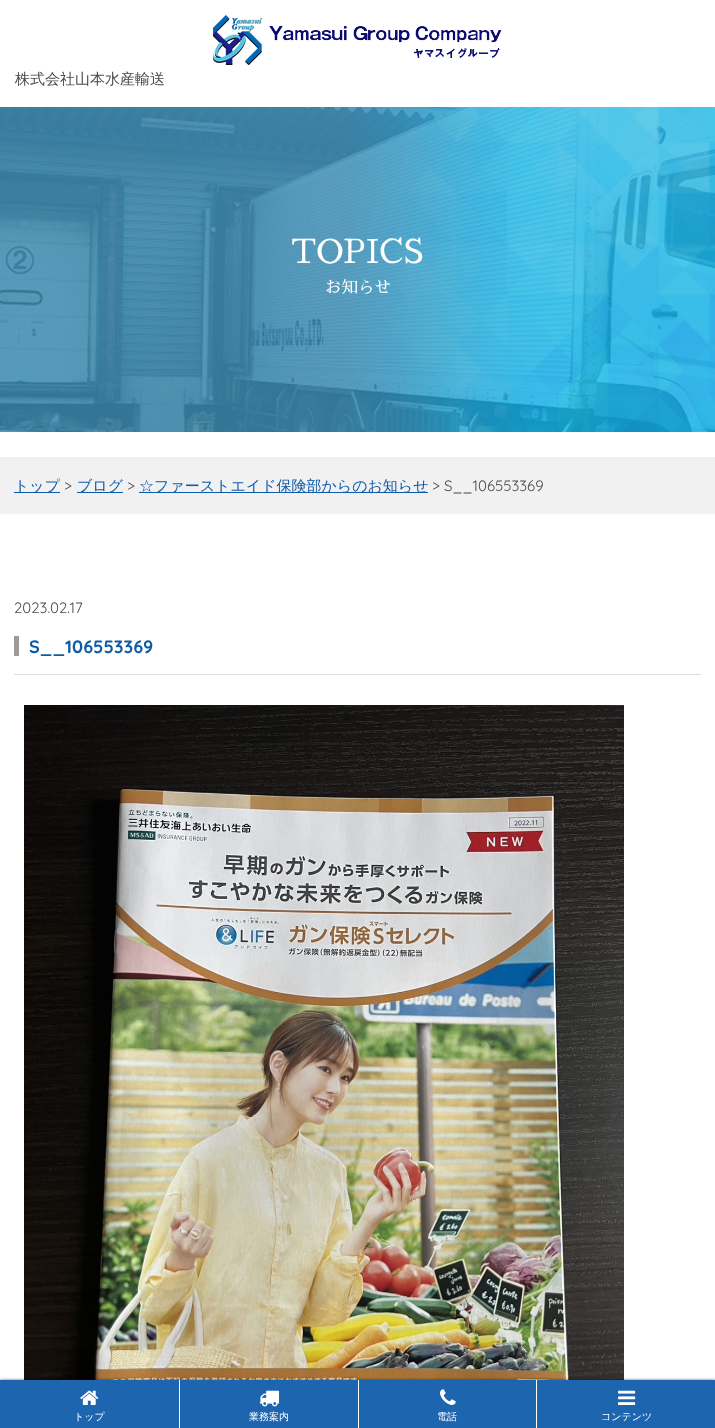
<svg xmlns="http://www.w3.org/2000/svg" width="715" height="1428">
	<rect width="100%" height="100%" fill="#FFFFFF" />
	<image x="213" y="15" width="289" height="50" href="assets/img1.png" />
	<text x="15" y="84" font-family="WenQuanYi Zen Hei" font-size="15" font-weight="500" fill="#4C4B4B">株式会社山本水産輸送</text>
	<image x="0" y="107" width="715" height="325" href="assets/img2.png" />
	<text x="291" y="263" font-family="Sawarabi Mincho" font-size="33" fill="#FFFFFF">TOPICS</text>
	<text x="325" y="293" font-family="Sawarabi Mincho" font-size="16.5" fill="#FFFFFF">お知らせ</text>
	<rect x="0" y="457" width="715" height="57" fill="#F1F1F1" />
	<rect x="14" y="492" width="46" height="1" fill="#0F5BA9" />
	<text x="14" y="491" font-family="WenQuanYi Zen Hei" font-size="15" font-weight="500" fill="#0F5BA9">トップ</text>
	<text x="64" y="491" font-family="Quicksand" font-size="15" fill="#4C4B4B">&gt;</text>
	<rect x="77" y="492" width="46" height="1" fill="#0F5BA9" />
	<text x="77" y="491" font-family="WenQuanYi Zen Hei" font-size="15" font-weight="500" fill="#0F5BA9">ブログ</text>
	<text x="127" y="491" font-family="Quicksand" font-size="15" fill="#4C4B4B">&gt;</text>
	<rect x="139" y="492" width="289" height="1" fill="#0F5BA9" />
	<text x="139" y="491" font-family="WenQuanYi Zen Hei" font-size="15" font-weight="500" fill="#0F5BA9">☆ファーストエイド保険部からのお知らせ</text>
	<g font-family="Quicksand" font-size="15" fill="#4C4B4B">
		<text x="432" y="491">&gt; S__106553369</text>
		<text x="14" y="613">2023.02.17</text>
	</g>
	<rect x="14" y="636" width="5" height="20" fill="#9B9B9B" />
	<rect x="14" y="674" width="687" height="1" fill="#DDDDDD" />
	<text x="29" y="653" font-family="Quicksand" font-size="18" font-weight="700" fill="#0F5BA9">S__106553369</text>
	<image x="24" y="705" width="600" height="675" href="assets/img3.png" />
	<rect x="0" y="1380" width="715" height="48" fill="#000000" fill-opacity="0.6" filter="blur(1.5px)" />
	<rect x="0" y="1380" width="715" height="48" fill="#1E65AF" />
	<image x="80" y="1390" width="19" height="15" href="assets/img4.png" />
	<text x="74" y="1420" font-family="WenQuanYi Zen Hei" font-size="10" font-weight="500" fill="#FFFFFF">トップ</text>
	<rect x="179" y="1380" width="1" height="48" fill="#FFFFFF" />
	<image x="259" y="1390" width="20" height="17" href="assets/img5.png" />
	<text x="249" y="1420" font-family="WenQuanYi Zen Hei" font-size="10" font-weight="500" fill="#FFFFFF">業務案内</text>
	<rect x="358" y="1380" width="1" height="48" fill="#FFFFFF" />
	<image x="440" y="1389" width="16" height="16" href="assets/img6.png" />
	<text x="437" y="1420" font-family="WenQuanYi Zen Hei" font-size="10" font-weight="500" fill="#FFFFFF">電話</text>
	<rect x="536" y="1380" width="1" height="48" fill="#FFFFFF" />
	<image x="618" y="1390" width="18" height="15" href="assets/img7.png" />
	<text x="601" y="1420" font-family="WenQuanYi Zen Hei" font-size="10" font-weight="500" fill="#FFFFFF">コンテンツ</text>
</svg>
